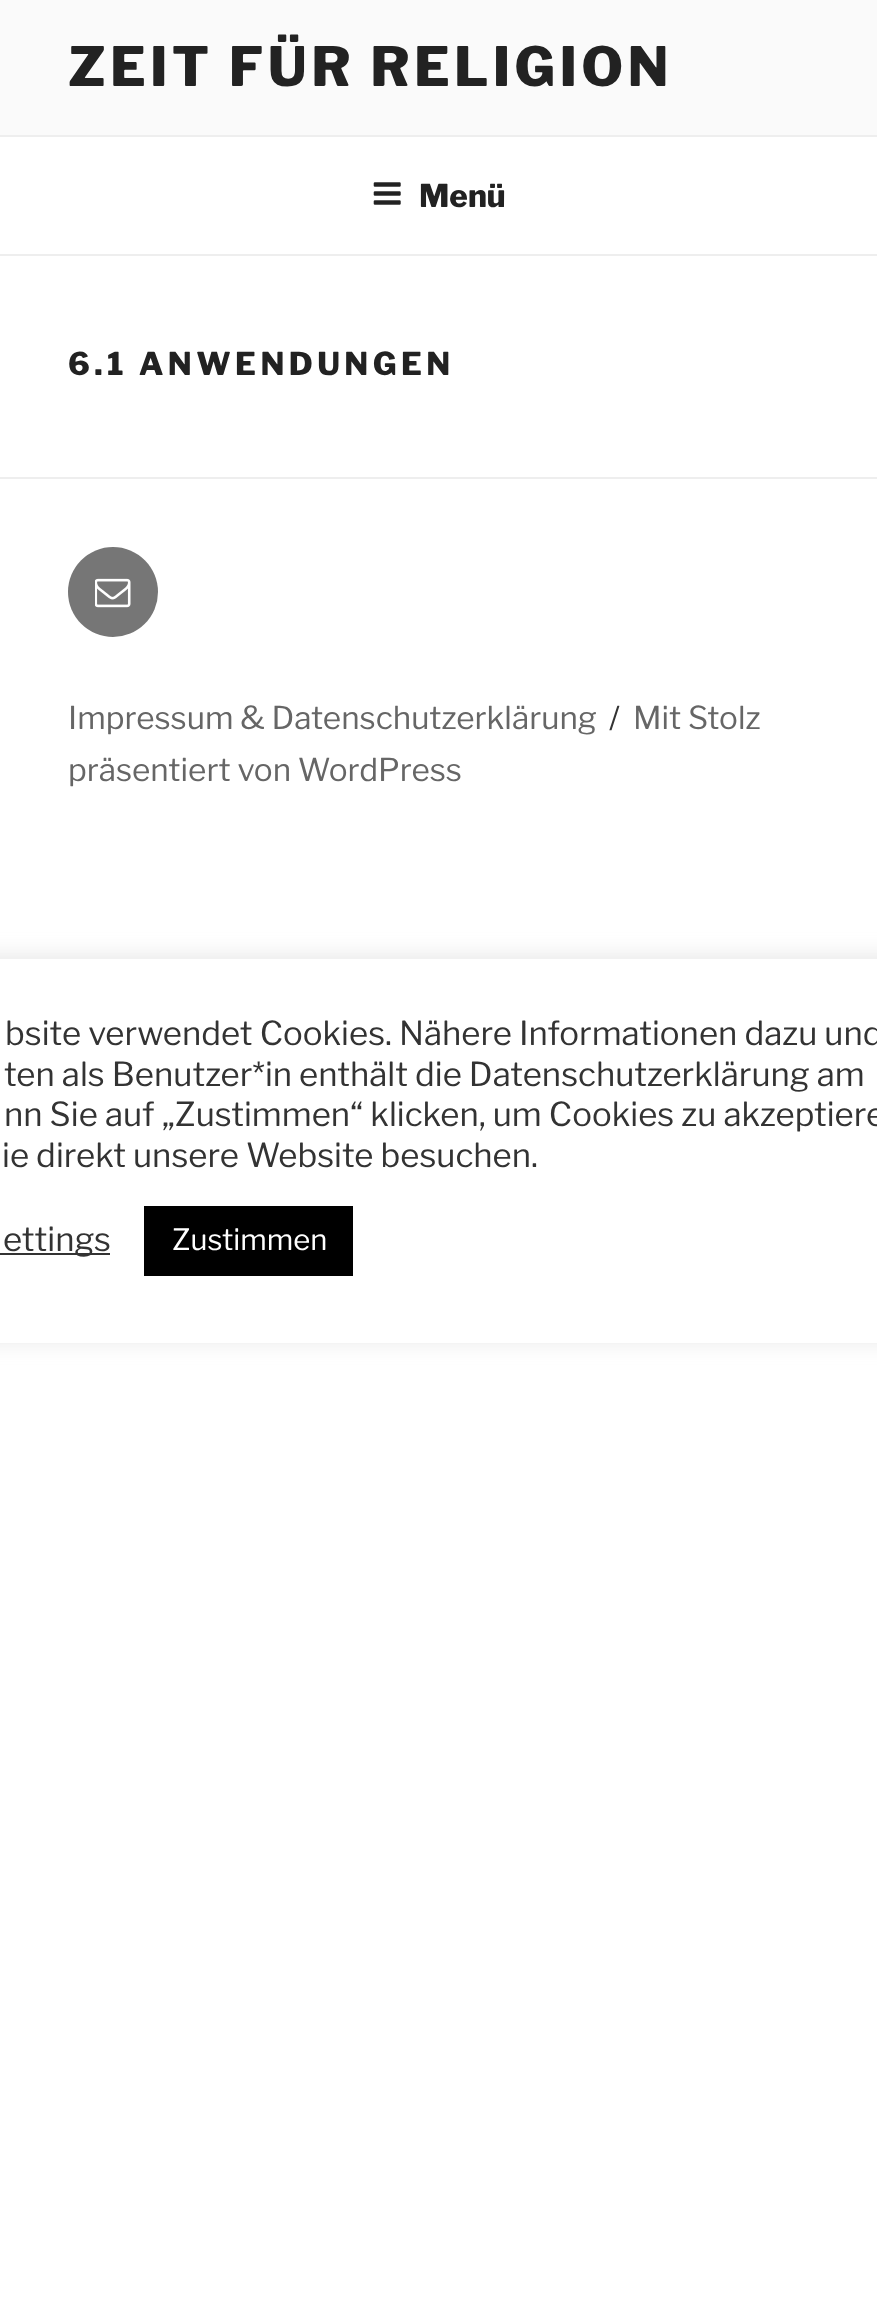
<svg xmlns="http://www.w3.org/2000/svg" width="877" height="2322">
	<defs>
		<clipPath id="clip1"><path d="M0 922H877V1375H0ZM-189 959H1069C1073 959 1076 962 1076 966V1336C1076 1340 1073 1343 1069 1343H-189C-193 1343-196 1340-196 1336V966C-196 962-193 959-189 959Z" clip-rule="evenodd" /></clipPath>
	</defs>
	<rect width="100%" height="100%" fill="#FFFFFF" />
	<rect x="0" y="0" width="877" height="135" fill="#FAFAFA" />
	<text x="68" y="86" font-family="Libre Franklin" font-size="54" font-weight="100" letter-spacing="4.3" fill="#222222">ZEIT FÜR RELIGION</text>
	<rect x="0" y="135" width="877" height="2" fill="#EEEEEE" />
	<rect x="0" y="254" width="877" height="2" fill="#EEEEEE" />
	<image x="373" y="182" width="28" height="23" href="assets/img1.png" />
	<text x="419" y="207" font-family="Libre Franklin" font-size="31.5" font-weight="100" fill="#222222">Menü</text>
	<text x="68" y="375" font-family="Libre Franklin" font-size="31.5" font-weight="100" letter-spacing="4.4" fill="#222222">6.1 ANWENDUNGEN</text>
	<rect x="0" y="477" width="877" height="2" fill="#EEEEEE" />
	<circle cx="113" cy="592" r="45" fill="#767676" />
	<image x="95" y="578" width="36" height="30" href="assets/img2.png" />
	<text x="68" y="729" font-family="'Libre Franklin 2'" font-size="31.5" font-weight="100" fill="#666666">Impressum &amp; Datenschutzerklärung</text>
	<text x="609" y="729" font-family="'Libre Franklin 2'" font-size="31.5" font-weight="100" fill="#333333">/</text>
	<g font-family="'Libre Franklin 2'" font-size="31.5" font-weight="100" fill="#666666">
		<text x="633" y="729">Mit Stolz</text>
		<text x="68" y="781">präsentiert von WordPress</text>
	</g>
	<g clip-path="url(#clip1)">
		<rect x="-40" y="956" width="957" height="385" rx="7" fill="#ACABAB" fill-opacity="0.3" filter="blur(11px)" />
	</g>
	<g font-family="'Libre Franklin 2'" font-size="33" font-weight="100" fill="#333333">
		<text x="5" y="1045">bsite verwendet Cookies. Nähere Informationen dazu und</text>
		<text x="4" y="1086">ten als Benutzer*in enthält die Datenschutzerklärung am</text>
		<text x="4" y="1126">nn Sie auf „Zustimmen“ klicken, um Cookies zu akzeptiere</text>
		<text x="2" y="1167">ie direkt unsere Website besuchen.</text>
	</g>
	<rect x="0" y="1253" width="110" height="2" fill="#333333" />
	<text x="3" y="1251" font-family="'Libre Franklin 2'" font-size="33" font-weight="100" fill="#333333">ettings</text>
	<rect x="144" y="1206" width="209" height="70" fill="#000000" />
	<text x="172" y="1250" font-family="'Libre Franklin 2'" font-size="29.25" font-weight="100" fill="#FFFFFF">Zustimmen</text>
</svg>
